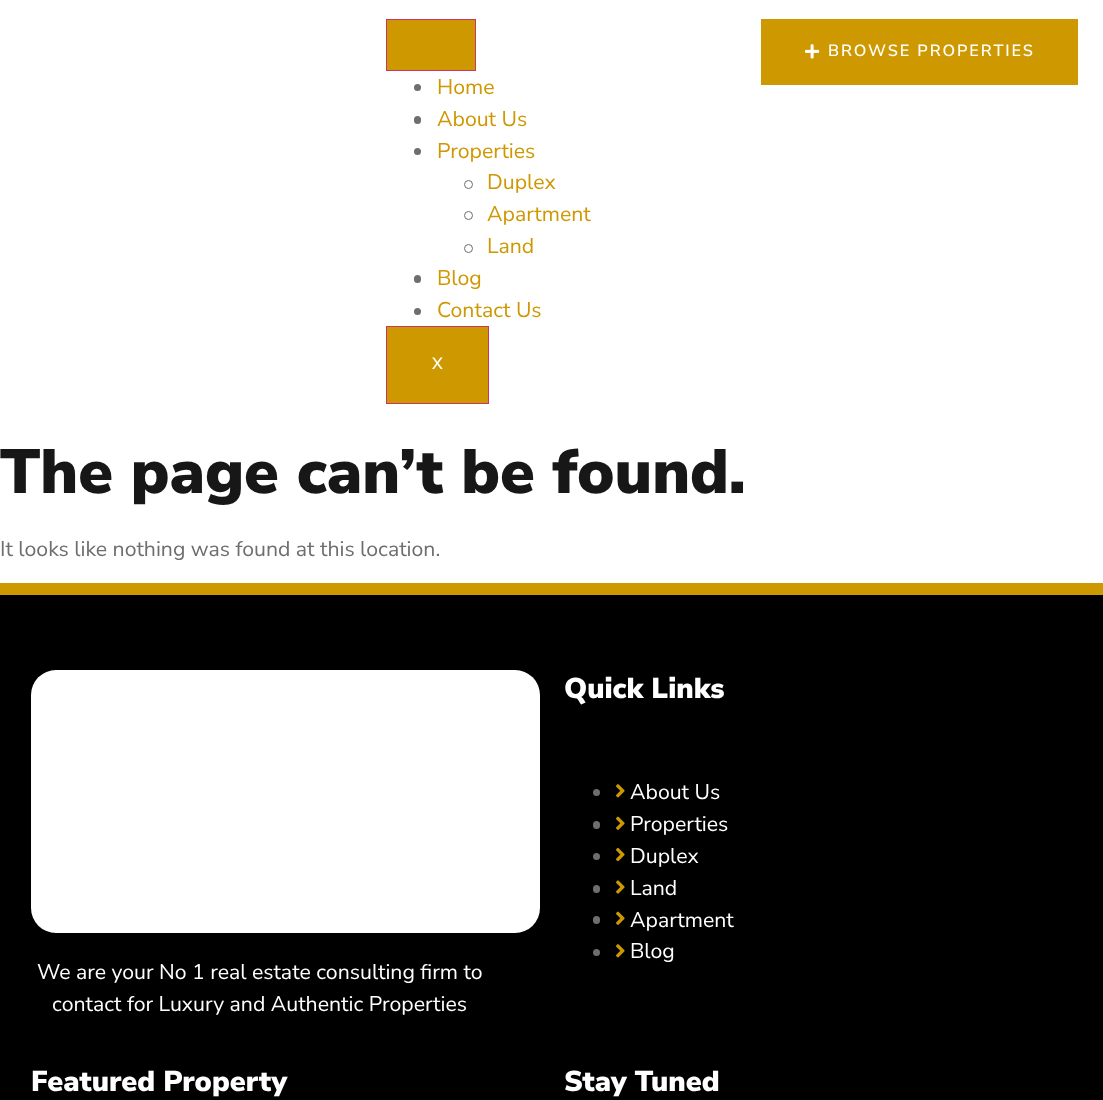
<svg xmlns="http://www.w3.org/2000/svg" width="1103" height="1100">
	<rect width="100%" height="100%" fill="#FFFFFF" />
	<rect x="761" y="19" width="317" height="66" fill="#CE9800" />
	<image x="805" y="44" width="15" height="15" href="assets/img1.png" />
	<text x="828" y="56" font-family="Nunito Sans" font-size="16.25" font-weight="600" letter-spacing="1.9" fill="#FFFFFF">BROWSE PROPERTIES</text>
	<rect x="386.5" y="19.5" width="89" height="51" fill="#CE9800" stroke="#CC3366" />
	<circle cx="417.5" cy="87.5" r="3.5" fill="#6E6E6E" />
	<text x="437" y="94" font-family="Nunito Sans" font-size="21.25" fill="#CE9800">Home</text>
	<rect x="414" y="116" width="7" height="8" rx="3.5" fill="#6E6E6E" />
	<text x="437" y="126" font-family="Nunito Sans" font-size="21.25" fill="#CE9800">About Us</text>
	<circle cx="417.5" cy="151.5" r="3.5" fill="#6E6E6E" />
	<text x="437" y="158" font-family="Nunito Sans" font-size="21.25" fill="#CE9800">Properties</text>
	<circle cx="468.5" cy="184.5" r="4" fill="none" stroke="#6E6E6E" />
	<text x="487" y="189" font-family="Nunito Sans" font-size="21.25" fill="#CE9800">Duplex</text>
	<circle cx="468.5" cy="215.5" r="4" fill="none" stroke="#6E6E6E" />
	<text x="487" y="221" font-family="Nunito Sans" font-size="21.25" fill="#CE9800">Apartment</text>
	<circle cx="468.5" cy="248.5" r="4" fill="none" stroke="#6E6E6E" />
	<text x="487" y="253" font-family="Nunito Sans" font-size="21.25" fill="#CE9800">Land</text>
	<rect x="414" y="275" width="7" height="8" rx="3.5" fill="#6E6E6E" />
	<text x="437" y="285" font-family="Nunito Sans" font-size="21.25" fill="#CE9800">Blog</text>
	<circle cx="417.5" cy="311.5" r="3.5" fill="#6E6E6E" />
	<text x="437" y="317" font-family="Nunito Sans" font-size="21.25" fill="#CE9800">Contact Us</text>
	<rect x="386.5" y="326.5" width="102" height="77" fill="#CE9800" stroke="#CC3366" />
	<text x="432" y="369" font-family="Nunito Sans" font-size="16.25" font-weight="600" letter-spacing="1.9" fill="#FFFFFF">X</text>
	<text x="0" y="493" font-family="Nunito Sans" font-size="62.5" font-weight="900" fill="#171717">The page can’t be found.</text>
	<text x="0" y="556" font-family="Nunito Sans" font-size="21.25" fill="#6E6E6E">It looks like nothing was found at this location.</text>
	<rect x="0" y="595" width="1103" height="505" fill="#000000" />
	<rect x="0" y="583" width="1103" height="12" fill="#CE9800" />
	<text x="564" y="698" font-family="Nunito Sans" font-size="28.75" font-weight="900" fill="#FFFFFF">Quick Links</text>
	<circle cx="596.5" cy="792.5" r="3.5" fill="#6E6E6E" />
	<image x="616" y="784" width="9" height="14" href="assets/img2.png" />
	<text x="630" y="799" font-family="Nunito Sans" font-size="21.25" fill="#FFFFFF">About Us</text>
	<rect x="593" y="821" width="7" height="8" rx="3.5" fill="#6E6E6E" />
	<image x="616" y="816" width="9" height="14" href="assets/img3.png" />
	<text x="630" y="831" font-family="Nunito Sans" font-size="21.25" fill="#FFFFFF">Properties</text>
	<circle cx="596.5" cy="856.5" r="3.5" fill="#6E6E6E" />
	<image x="616" y="847" width="9" height="15" href="assets/img4.png" />
	<text x="630" y="863" font-family="Nunito Sans" font-size="21.25" fill="#FFFFFF">Duplex</text>
	<rect x="593" y="885" width="7" height="8" rx="3.5" fill="#6E6E6E" />
	<image x="616" y="880" width="9" height="14" href="assets/img5.png" />
	<text x="630" y="895" font-family="Nunito Sans" font-size="21.25" fill="#FFFFFF">Land</text>
	<rect x="593" y="916" width="7" height="8" rx="3.5" fill="#6E6E6E" />
	<image x="616" y="911" width="9" height="14" href="assets/img3.png" />
	<text x="630" y="927" font-family="Nunito Sans" font-size="21.25" fill="#FFFFFF">Apartment</text>
	<circle cx="596.5" cy="952.5" r="3.5" fill="#6E6E6E" />
	<image x="616" y="944" width="9" height="14" href="assets/img2.png" />
	<text x="630" y="958" font-family="Nunito Sans" font-size="21.25" fill="#FFFFFF">Blog</text>
	<rect x="31" y="670" width="509" height="263" rx="25" fill="#FFFFFF" />
	<g font-family="Nunito Sans" font-size="21.25" fill="#FFFFFF">
		<text x="37" y="979">We are your No 1 real estate consulting firm to</text>
		<text x="52" y="1011">contact for Luxury and Authentic Properties</text>
	</g>
	<g font-family="Nunito Sans" font-size="28.75" font-weight="900" fill="#FFFFFF">
		<text x="31" y="1091">Featured Property</text>
		<text x="564" y="1091">Stay Tuned</text>
	</g>
</svg>
